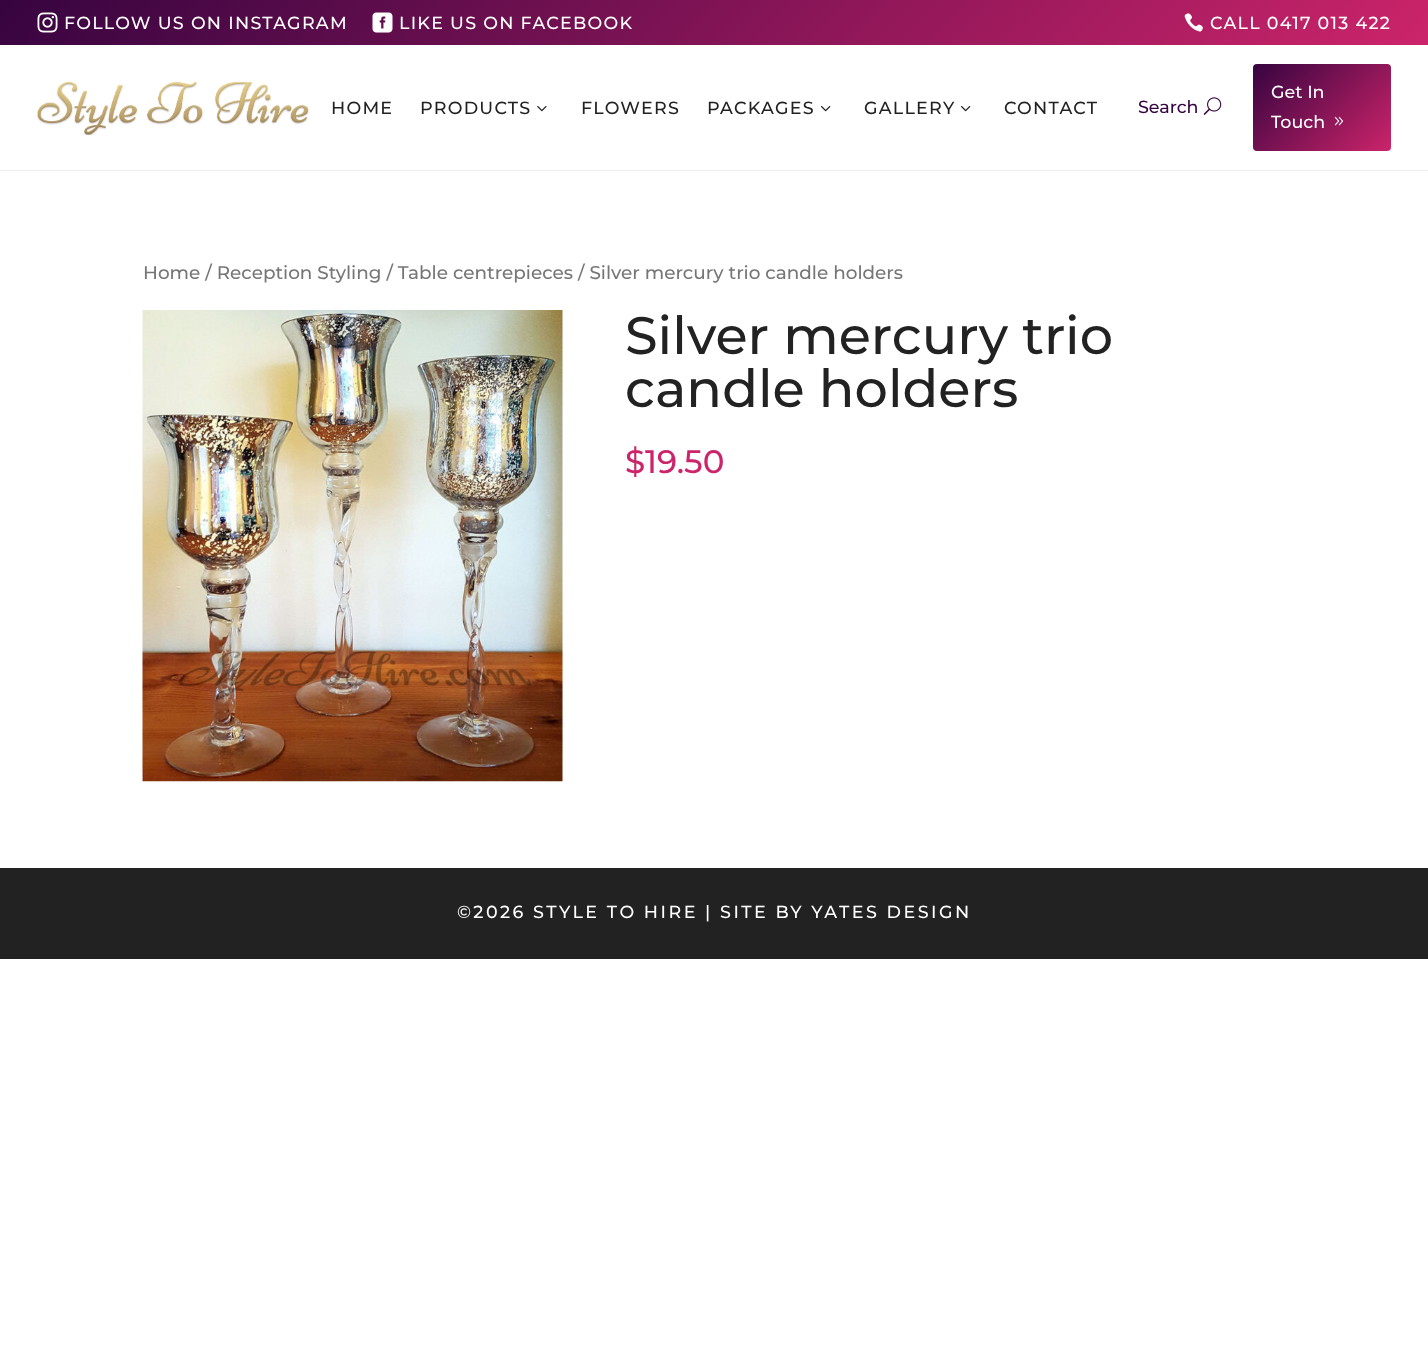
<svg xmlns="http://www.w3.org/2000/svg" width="1428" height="1369">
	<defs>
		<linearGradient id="g1" gradientUnits="userSpaceOnUse" x1="346" y1="-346" x2="1083" y2="391"><stop offset="0" stop-color="#360440" /><stop offset="1" stop-color="#CC246A" /></linearGradient>
		<linearGradient id="g2" gradientUnits="userSpaceOnUse" x1="1265" y1="51" x2="1378" y2="164"><stop offset="0" stop-color="#360440" /><stop offset="1" stop-color="#CC246A" /></linearGradient>
	</defs>
	<rect width="100%" height="100%" fill="#FFFFFF" />
	<rect x="0" y="170" width="1428" height="1" fill="#EEEEEE" />
	<rect x="0" y="0" width="1428" height="45" fill="url(#g1)" />
	<image x="37" y="12" width="21" height="21" href="assets/img1.png" />
	<text x="64" y="29" font-family="Montserrat" font-size="17.5" font-weight="100" letter-spacing="1.25" fill="#FFFFFF">FOLLOW US ON INSTAGRAM</text>
	<image x="372" y="12" width="21" height="21" href="assets/img2.png" />
	<text x="399" y="29" font-family="Montserrat" font-size="17.5" font-weight="100" letter-spacing="1.25" fill="#FFFFFF">LIKE US ON FACEBOOK</text>
	<image x="1184" y="13" width="19" height="19" href="assets/img3.png" />
	<text x="1210" y="29" font-family="Montserrat" font-size="17.5" font-weight="100" letter-spacing="1.25" fill="#FFFFFF">CALL 0417 013 422</text>
	<image x="37" y="81" width="272" height="54" href="assets/img4.png" />
	<g font-family="Montserrat" font-size="17.5" font-weight="100" letter-spacing="1.25" fill="#222222">
		<text x="331" y="114">HOME</text>
		<text x="420" y="114">PRODUCTS</text>
	</g>
	<image x="537" y="106" width="10" height="6" href="assets/img5.png" />
	<g font-family="Montserrat" font-size="17.5" font-weight="100" letter-spacing="1.25" fill="#222222">
		<text x="581" y="114">FLOWERS</text>
		<text x="707" y="114">PACKAGES</text>
	</g>
	<image x="821" y="106" width="10" height="6" href="assets/img6.png" />
	<text x="864" y="114" font-family="Montserrat" font-size="17.5" font-weight="100" letter-spacing="1.25" fill="#222222">GALLERY</text>
	<image x="961" y="106" width="10" height="6" href="assets/img6.png" />
	<text x="1004" y="114" font-family="Montserrat" font-size="17.5" font-weight="100" letter-spacing="1.25" fill="#222222">CONTACT</text>
	<text x="1138" y="113" font-family="Montserrat" font-size="17.5" font-weight="100" fill="#360440">Search</text>
	<image x="1203" y="97" width="19" height="18" href="assets/img7.png" />
	<rect x="1253" y="64" width="138" height="87" rx="4" fill="url(#g2)" />
	<g font-family="Montserrat" font-size="17.5" font-weight="100" fill="#FFFFFF">
		<text x="1271" y="98">Get In</text>
		<text x="1271" y="128">Touch</text>
	</g>
	<image x="1334" y="116" width="10" height="10" href="assets/img8.png" />
	<text x="143" y="279" font-family="Montserrat" font-size="18.4" font-weight="100" fill="#767676">Home / Reception Styling / Table centrepieces / Silver mercury trio candle holders</text>
	<image x="142" y="310" width="421" height="472" href="assets/img9.png" />
	<g font-family="Montserrat" font-size="52.5" font-weight="100" fill="#222222">
		<text x="625" y="354">Silver mercury trio</text>
		<text x="625" y="407">candle holders</text>
	</g>
	<g font-family="Montserrat" font-size="32.5" font-weight="100" fill="#CC246A">
		<text x="625" y="473">$</text>
		<text x="645" y="473">19.50</text>
	</g>
	<rect x="0" y="868" width="1428" height="91" fill="#222222" />
	<text x="457" y="918" font-family="Montserrat" font-size="17.5" font-weight="100" letter-spacing="2.5" fill="#FFFFFF">©2026 STYLE TO HIRE | SITE BY YATES DESIGN</text>
</svg>
